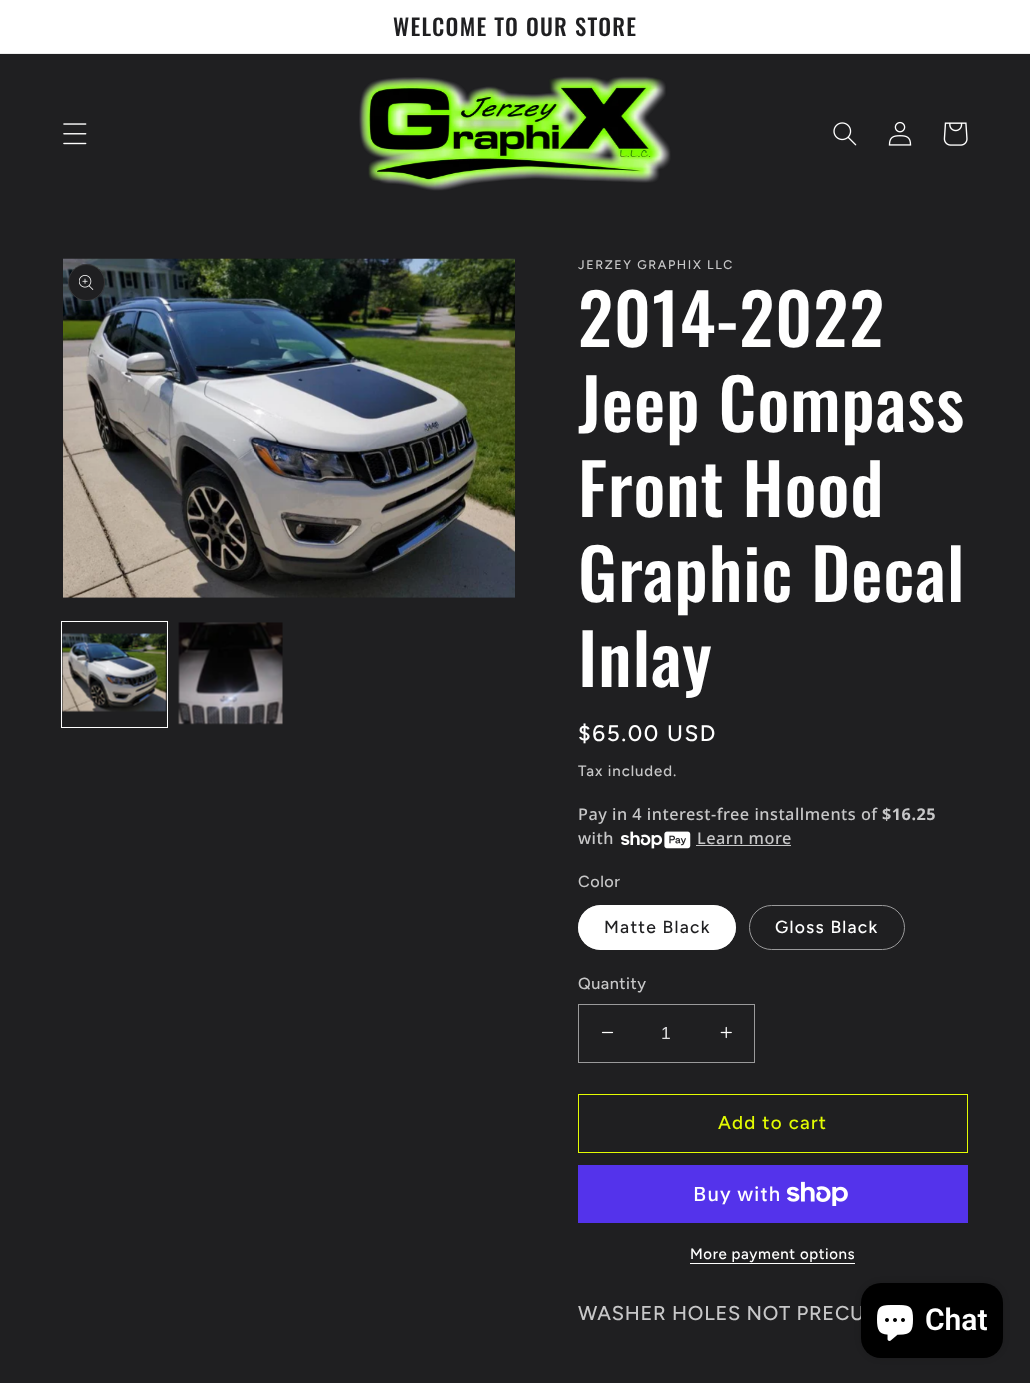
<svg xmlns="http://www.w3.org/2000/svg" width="1030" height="1383">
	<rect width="100%" height="100%" fill="#1F1F21" />
	<rect x="0" y="0" width="1030" height="53" fill="#FFFFFF" />
	<rect x="0" y="53" width="1030" height="1" fill="#EDEDED" />
	<text x="393" y="36" font-family="Oswald" font-size="22.75" font-weight="500" letter-spacing="1.25" fill="#1F1F21">WELCOME TO OUR STORE</text>
	<image x="63" y="123" width="24" height="22" href="assets/img1.png" />
	<image x="359" y="76" width="312" height="115" href="assets/img2.png" />
	<image x="833" y="122" width="24" height="24" href="assets/img3.png" />
	<image x="888" y="121" width="24" height="25" href="assets/img4.png" />
	<image x="943" y="122" width="25" height="24" href="assets/img5.png" />
	<image x="63" y="258" width="452" height="340" href="assets/img6.png" />
	<circle cx="86.5" cy="282.5" r="18.5" fill="#1F1F21" />
	<circle cx="86.5" cy="282.5" r="18" fill="none" stroke="#FFFFFF" stroke-opacity="0.1" />
	<image x="79" y="275" width="15" height="15" href="assets/img7.png" />
	<rect x="61.5" y="621.5" width="106" height="106" fill="none" stroke="#FFFFFF" />
	<image x="62" y="633" width="105" height="79" href="assets/img8.png" />
	<image x="178" y="622" width="105" height="103" href="assets/img9.png" />
	<text x="578" y="269" font-family="Figtree" font-size="12.5" font-weight="500" letter-spacing="1.6" fill="#C7C7C8">JERZEY GRAPHIX LLC</text>
	<g font-family="Oswald" font-size="70" font-weight="500" letter-spacing="1" fill="#FFFFFF">
		<text x="578" y="347">2014-2022</text>
		<text x="578" y="432">Jeep Compass</text>
		<text x="578" y="517">Front Hood</text>
		<text x="578" y="602">Graphic Decal</text>
		<text x="578" y="687">Inlay</text>
	</g>
	<text x="578" y="741" font-family="Figtree" font-size="22.5" font-weight="500" letter-spacing="1.6" fill="#FFFFFF">$65.00 USD</text>
	<text x="578" y="776" font-family="Figtree" font-size="15" font-weight="500" letter-spacing="0.9" fill="#C7C7C8">Tax included.</text>
	<text x="578" y="820" font-family="Noto Sans" font-size="16.25" font-weight="500" letter-spacing="0.5" fill="#C7C7C8">Pay in 4 interest-free installments of</text>
	<text x="882" y="820" font-family="Noto Sans" font-size="16.25" font-weight="700" letter-spacing="0.5" fill="#C7C7C8">$16.25</text>
	<text x="578" y="844" font-family="Noto Sans" font-size="16.25" font-weight="500" letter-spacing="0.5" fill="#C7C7C8">with</text>
	<image x="621" y="831" width="70" height="18" href="assets/img10.png" />
	<text x="697" y="844" font-family="Noto Sans" font-size="16.25" font-weight="500" letter-spacing="0.5" fill="#C7C7C8">Learn more</text>
	<rect x="696" y="845" width="95" height="1" fill="#C7C7C8" />
	<text x="578" y="887" font-family="Figtree" font-size="16.25" font-weight="500" letter-spacing="0.5" fill="#C7C7C8">Color</text>
	<rect x="578" y="905" width="158" height="45" rx="22.5" fill="#FFFFFF" />
	<rect x="578.5" y="905.5" width="157" height="44" rx="22" fill="none" stroke="#FFFFFF" stroke-opacity="0.55" />
	<text x="604" y="933" font-family="Figtree" font-size="17.5" font-weight="500" letter-spacing="1.25" fill="#1F1F21">Matte Black</text>
	<rect x="749.5" y="905.5" width="155" height="44" rx="22" fill="none" stroke="#9A9A9B" />
	<text x="775" y="933" font-family="Figtree" font-size="17.5" font-weight="500" letter-spacing="1.25" fill="#FFFFFF">Gloss Black</text>
	<text x="578" y="989" font-family="Figtree" font-size="16.25" font-weight="500" letter-spacing="0.5" fill="#C7C7C8">Quantity</text>
	<image x="601" y="1031" width="13" height="3" href="assets/img11.png" />
	<image x="720" y="1026" width="12" height="13" href="assets/img12.png" />
	<rect x="578.5" y="1004.5" width="176" height="58" fill="none" stroke="#9A9A9B" />
	<text x="661" y="1039" font-family="Liberation Sans" font-size="17.5" fill="#DDDDDE">1</text>
	<rect x="578.5" y="1094.5" width="389" height="58" fill="none" stroke="#E3FC02" />
	<text x="718" y="1129" font-family="Figtree" font-size="18.75" font-weight="500" letter-spacing="1.25" fill="#E3FC02">Add to cart</text>
	<rect x="578" y="1165" width="390" height="58" fill="#5433EB" />
	<text x="693" y="1201" font-family="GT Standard" font-size="20" font-weight="500" letter-spacing="0.75" fill="#FFFFFF">Buy with</text>
	<image x="786" y="1181" width="62" height="25" href="assets/img13.png" />
	<text x="690" y="1259" font-family="Figtree" font-size="15" font-weight="500" letter-spacing="0.6" fill="#FFFFFF">More payment options</text>
	<rect x="690" y="1263" width="165" height="1" fill="#FFFFFF" />
	<text x="578" y="1320" font-family="Figtree" font-size="20" font-weight="500" letter-spacing="0.75" fill="#C7C7C8">WASHER HOLES NOT PRECU</text>
	<rect x="861" y="1283" width="142" height="75" rx="20" fill="#000000" fill-opacity="0.15" filter="blur(3px)" />
	<rect x="861" y="1283" width="142" height="75" rx="20" fill="#000000" />
	<image x="877" y="1305" width="36" height="36" href="assets/img14.png" />
	<text x="925" y="1330" font-family="Roboto" font-size="30" font-weight="600" fill="#FFFFFF">Chat</text>
</svg>
